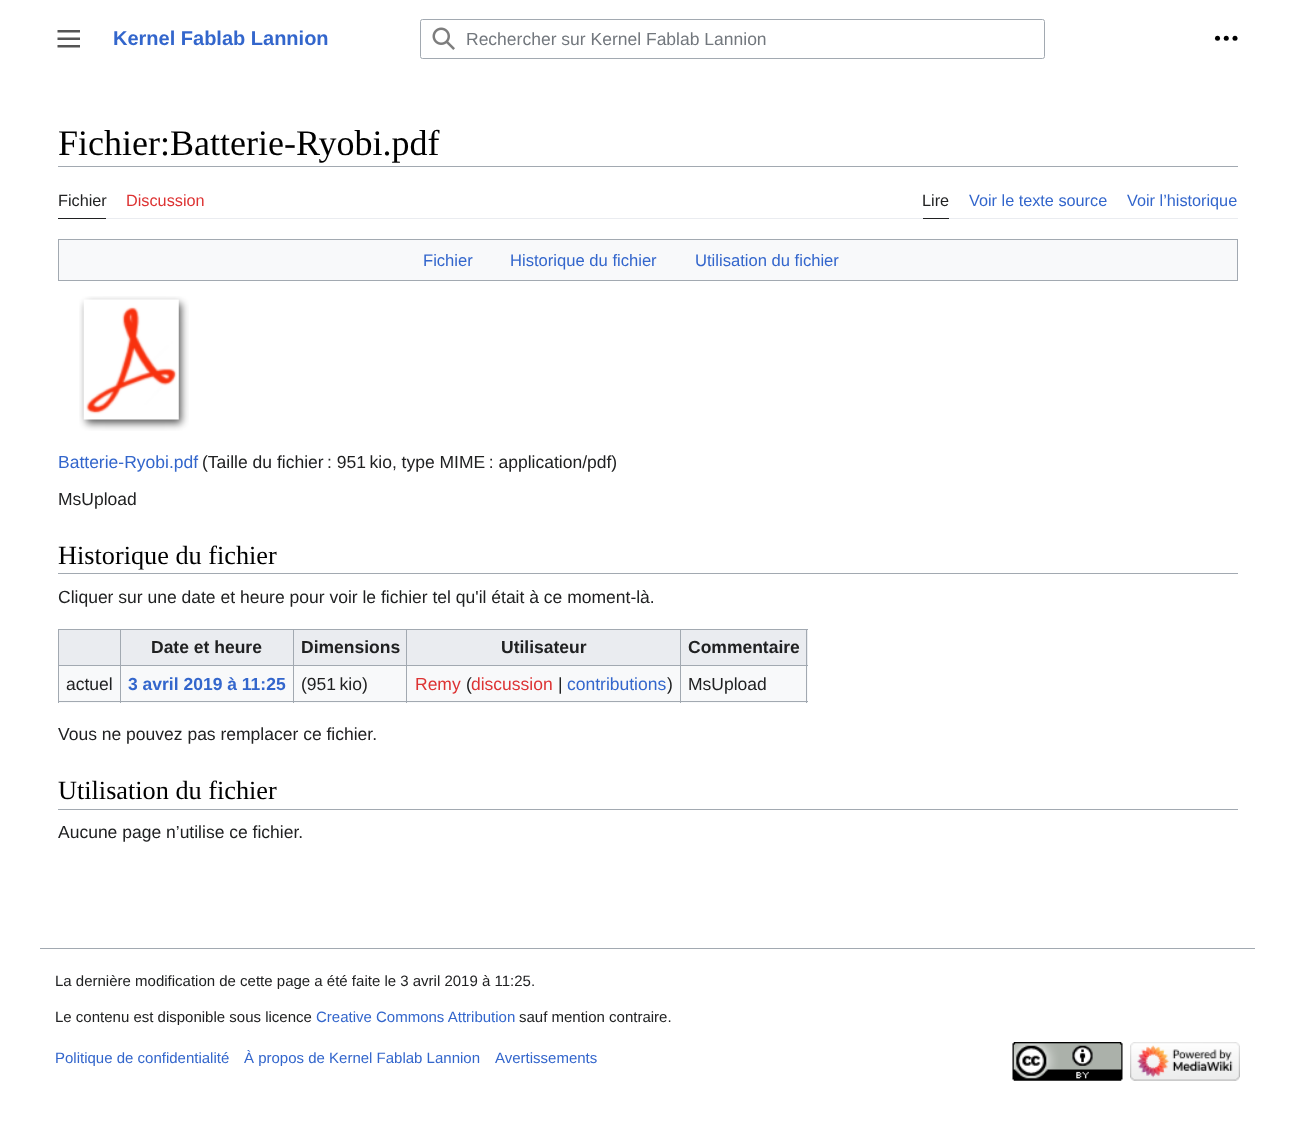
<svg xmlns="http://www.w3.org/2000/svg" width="1295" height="1125">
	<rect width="100%" height="100%" fill="#FFFFFF" />
	<image x="57" y="30" width="23" height="18" href="assets/img1.png" />
	<text x="113" y="45" font-family="Liberation Sans" font-size="20" font-weight="700" fill="#3366CC">Kernel Fablab Lannion</text>
	<rect x="420.5" y="19.5" width="624" height="39" rx="2" fill="none" stroke="#A2A9B1" />
	<image x="432" y="27" width="23" height="23" href="assets/img2.png" />
	<text x="466" y="45" font-family="Liberation Sans" font-size="17.5" fill="#72777D">Rechercher sur Kernel Fablab Lannion</text>
	<image x="1214" y="35" width="24" height="6" href="assets/img3.png" />
	<rect x="58" y="166" width="1180" height="1" fill="#A2A9B1" />
	<text x="58" y="155" font-family="Liberation Serif" font-size="36" fill="#000000">Fichier:Batterie-Ryobi.pdf</text>
	<rect x="106" y="218" width="1132" height="1" fill="#EAECF0" />
	<rect x="58" y="218" width="48" height="1" fill="#202122" />
	<text x="58" y="206" font-family="Liberation Sans" font-size="16.25" fill="#202122">Fichier</text>
	<text x="126" y="206" font-family="Liberation Sans" font-size="16.25" fill="#DD3333">Discussion</text>
	<rect x="923" y="218" width="26" height="1" fill="#202122" />
	<text x="922" y="206" font-family="Liberation Sans" font-size="16.25" fill="#202122">Lire</text>
	<g font-family="Liberation Sans" font-size="16.25" fill="#3366CC">
		<text x="969" y="206">Voir le texte source</text>
		<text x="1127" y="206">Voir l’historique</text>
	</g>
	<rect x="58.5" y="239.5" width="1179" height="41" fill="#F8F9FA" stroke="#A2A9B1" />
	<g font-family="Liberation Sans" font-size="16.6" fill="#3366CC">
		<text x="423" y="266">Fichier</text>
		<text x="510" y="266">Historique du fichier</text>
		<text x="695" y="266">Utilisation du fichier</text>
	</g>
	<image x="79" y="296" width="110" height="135" href="assets/img4.png" />
	<text x="58" y="468" font-family="Liberation Sans" font-size="17.5" fill="#3366CC">Batterie-Ryobi.pdf</text>
	<g font-family="Liberation Sans" font-size="17.5" fill="#202122">
		<text x="202" y="468">(Taille du fichier : 951 kio, type MIME : application/pdf)</text>
		<text x="58" y="505">MsUpload</text>
	</g>
	<rect x="58" y="573" width="1180" height="1" fill="#A2A9B1" />
	<text x="58" y="564" font-family="Liberation Serif" font-size="26.25" fill="#000000">Historique du fichier</text>
	<text x="58" y="603" font-family="Liberation Sans" font-size="17.5" fill="#202122">Cliquer sur une date et heure pour voir le fichier tel qu'il était à ce moment-là.</text>
	<rect x="59" y="666" width="749" height="37" fill="#F8F9FA" />
	<rect x="58" y="629" width="750" height="1" fill="#A2A9B1" />
	<rect x="681" y="630" width="127" height="35" fill="#EAECF0" />
	<rect x="806" y="629" width="1" height="74" fill="#A2A9B1" />
	<rect x="58" y="701" width="750" height="1" fill="#A2A9B1" />
	<rect x="58" y="629" width="1" height="74" fill="#A2A9B1" />
	<rect x="59" y="630" width="61" height="35" fill="#EAECF0" />
	<rect x="121" y="630" width="172" height="35" fill="#EAECF0" />
	<rect x="680" y="665" width="128" height="1" fill="#A2A9B1" />
	<rect x="680" y="665" width="1" height="38" fill="#A2A9B1" />
	<rect x="406" y="665" width="275" height="1" fill="#A2A9B1" />
	<rect x="406" y="665" width="1" height="38" fill="#A2A9B1" />
	<rect x="293" y="665" width="115" height="1" fill="#A2A9B1" />
	<rect x="293" y="665" width="1" height="38" fill="#A2A9B1" />
	<rect x="120" y="665" width="174" height="1" fill="#A2A9B1" />
	<rect x="120" y="665" width="1" height="38" fill="#A2A9B1" />
	<rect x="58" y="665" width="63" height="1" fill="#A2A9B1" />
	<rect x="120" y="629" width="1" height="37" fill="#A2A9B1" />
	<text x="151" y="653" font-family="Liberation Sans" font-size="17.5" font-weight="700" fill="#202122">Date et heure</text>
	<rect x="294" y="630" width="386" height="35" fill="#EAECF0" />
	<rect x="293" y="629" width="1" height="37" fill="#A2A9B1" />
	<text x="301" y="653" font-family="Liberation Sans" font-size="17.5" font-weight="700" fill="#202122">Dimensions</text>
	<rect x="406" y="629" width="1" height="37" fill="#A2A9B1" />
	<text x="501" y="653" font-family="Liberation Sans" font-size="17.5" font-weight="700" fill="#202122">Utilisateur</text>
	<rect x="680" y="629" width="1" height="37" fill="#A2A9B1" />
	<text x="688" y="653" font-family="Liberation Sans" font-size="17.5" font-weight="700" fill="#202122">Commentaire</text>
	<text x="66" y="690" font-family="Liberation Sans" font-size="17.5" fill="#202122">actuel</text>
	<text x="128" y="690" font-family="Liberation Sans" font-size="17.5" font-weight="700" fill="#3366CC">3 avril 2019 à 11:25</text>
	<text x="301" y="690" font-family="Liberation Sans" font-size="17.5" fill="#202122">(951 kio)</text>
	<text x="415" y="690" font-family="Liberation Sans" font-size="17.5" fill="#DD3333">Remy</text>
	<text x="466" y="690" font-family="Liberation Sans" font-size="17.5" fill="#202122">(</text>
	<text x="471" y="690" font-family="Liberation Sans" font-size="17.5" fill="#DD3333">discussion</text>
	<text x="558" y="690" font-family="Liberation Sans" font-size="17.5" fill="#202122">|</text>
	<text x="567" y="690" font-family="Liberation Sans" font-size="17.5" fill="#3366CC">contributions</text>
	<g font-family="Liberation Sans" font-size="17.5" fill="#202122">
		<text x="667" y="690">)</text>
		<text x="688" y="690">MsUpload</text>
		<text x="58" y="740">Vous ne pouvez pas remplacer ce fichier.</text>
	</g>
	<rect x="58" y="809" width="1180" height="1" fill="#A2A9B1" />
	<text x="58" y="799" font-family="Liberation Serif" font-size="26.25" fill="#000000">Utilisation du fichier</text>
	<text x="58" y="838" font-family="Liberation Sans" font-size="17.5" fill="#202122">Aucune page n’utilise ce fichier.</text>
	<rect x="40" y="948" width="1215" height="1" fill="#A2A9B1" />
	<g font-family="Liberation Sans" font-size="15" fill="#202122">
		<text x="55" y="986">La dernière modification de cette page a été faite le 3 avril 2019 à 11:25.</text>
		<text x="55" y="1022">Le contenu est disponible sous licence</text>
	</g>
	<text x="316" y="1022" font-family="Liberation Sans" font-size="15" fill="#3366CC">Creative Commons Attribution</text>
	<text x="519" y="1022" font-family="Liberation Sans" font-size="15" fill="#202122">sauf mention contraire.</text>
	<g font-family="Liberation Sans" font-size="15" fill="#3366CC">
		<text x="55" y="1063">Politique de confidentialité</text>
		<text x="244" y="1063">À propos de Kernel Fablab Lannion</text>
		<text x="495" y="1063">Avertissements</text>
	</g>
	<image x="1012" y="1042" width="111" height="39" href="assets/img5.png" />
	<image x="1130" y="1042" width="110" height="39" href="assets/img6.png" />
</svg>
